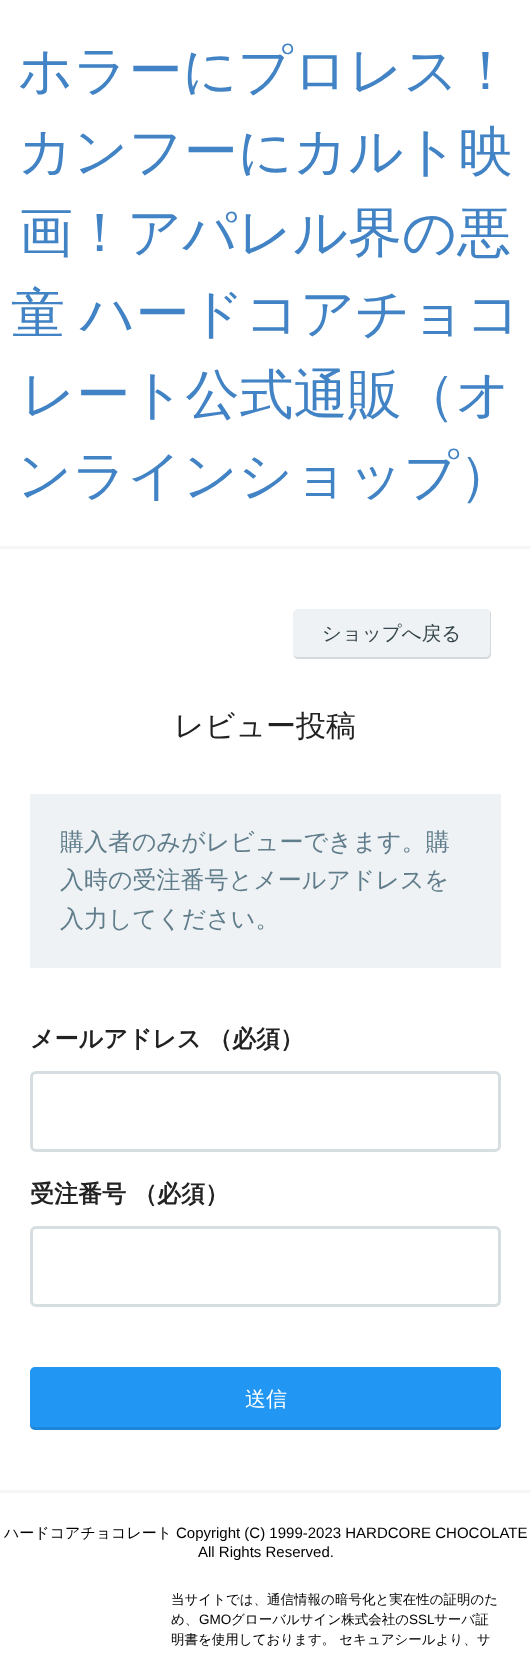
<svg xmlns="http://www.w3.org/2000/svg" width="530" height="1653">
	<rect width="100%" height="100%" fill="#FFFFFF" />
	<g font-family="WenQuanYi Zen Hei" font-size="54" font-weight="500" fill="#4183C4">
		<text x="18" y="89">ホラーにプロレス！</text>
		<text x="18" y="170">カンフーにカルト映</text>
		<text x="19" y="251">画！アパレル界の悪</text>
		<text x="11" y="332" word-spacing="-1">童 ハードコアチョコ</text>
		<text x="21" y="413">レート公式通販（オ</text>
		<text x="17" y="494">ンラインショップ）</text>
	</g>
	<rect x="0" y="546" width="530" height="3" fill="#F6F6F6" />
	<rect x="0" y="1490" width="530" height="3" fill="#F6F6F6" />
	<rect x="293" y="609" width="198" height="50" rx="5" fill="#EFF2F4" />
	<path d="M293 655C294 657 296 659 298 659H486C489 659 491 657 491 654V614C491 613 491 612 490 611V652C490 655 488 657 486 657H297C296 657 294 656 293 655Z" fill="#000000" fill-opacity="0.1" />
	<text x="322" y="640" font-family="WenQuanYi Zen Hei" font-size="19.5" font-weight="500" fill="#35454C">ショップへ戻る</text>
	<text x="174" y="736" font-family="WenQuanYi Zen Hei" font-size="30" font-weight="500" fill="#222222">レビュー投稿</text>
	<rect x="30" y="794" width="471" height="174" fill="#EFF2F4" />
	<g font-family="WenQuanYi Zen Hei" font-size="24" font-weight="500" fill="#607D8B">
		<text x="60" y="850">購入者のみがレビューできます。購</text>
		<text x="60" y="888">入時の受注番号とメールアドレスを</text>
		<text x="60" y="927">入力してください。</text>
	</g>
	<g font-family="WenQuanYi Zen Hei" font-size="24" font-weight="700" fill="#222222">
		<text x="30" y="1047">メールアドレス</text>
		<text x="208" y="1047">（必須）</text>
	</g>
	<rect x="31.5" y="1072.5" width="468" height="78" rx="4.5" fill="none" stroke="#D7DEE2" stroke-width="3" />
	<g font-family="WenQuanYi Zen Hei" font-size="24" font-weight="700" fill="#222222">
		<text x="30" y="1202">受注番号</text>
		<text x="133" y="1202">（必須）</text>
	</g>
	<rect x="31.5" y="1227.5" width="468" height="78" rx="4.5" fill="none" stroke="#D7DEE2" stroke-width="3" />
	<rect x="30" y="1367" width="471" height="63" rx="5" fill="#2196F3" />
	<path d="M30 1423V1425C30 1428 32 1430 35 1430H496C499 1430 501 1428 501 1425V1423C501 1425 499 1427 496 1427H34C32 1427 30 1425 30 1423Z" fill="#000000" fill-opacity="0.1" />
	<text x="245" y="1406" font-family="WenQuanYi Zen Hei" font-size="21" font-weight="500" fill="#FFFFFF">送信</text>
	<text x="4" y="1538" font-family="WenQuanYi Zen Hei" font-size="15" font-weight="500" fill="#000000">ハードコアチョコレート</text>
	<g font-family="Liberation Sans" font-size="15" fill="#000000">
		<text x="176" y="1538">Copyright (C) 1999-2023 HARDCORE CHOCOLATE</text>
		<text x="198" y="1557">All Rights Reserved.</text>
	</g>
	<g font-family="WenQuanYi Zen Hei" font-size="13.5" font-weight="500" fill="#000000">
		<text x="171" y="1604">当サイトでは、通信情報の暗号化と実在性の証明のた</text>
		<text x="171" y="1624">め、</text>
	</g>
	<text x="199" y="1624" font-family="Liberation Sans" font-size="13.5" fill="#000000">GMO</text>
	<text x="231" y="1624" font-family="WenQuanYi Zen Hei" font-size="13.5" font-weight="500" fill="#000000">グローバルサイン株式会社の</text>
	<text x="409" y="1624" font-family="Liberation Sans" font-size="13.5" fill="#000000">SSL</text>
	<g font-family="WenQuanYi Zen Hei" font-size="13.5" font-weight="500" fill="#000000">
		<text x="434" y="1624">サーバ証</text>
		<text x="171" y="1644">明書を使用しております。 セキュアシールより、サ</text>
	</g>
</svg>
